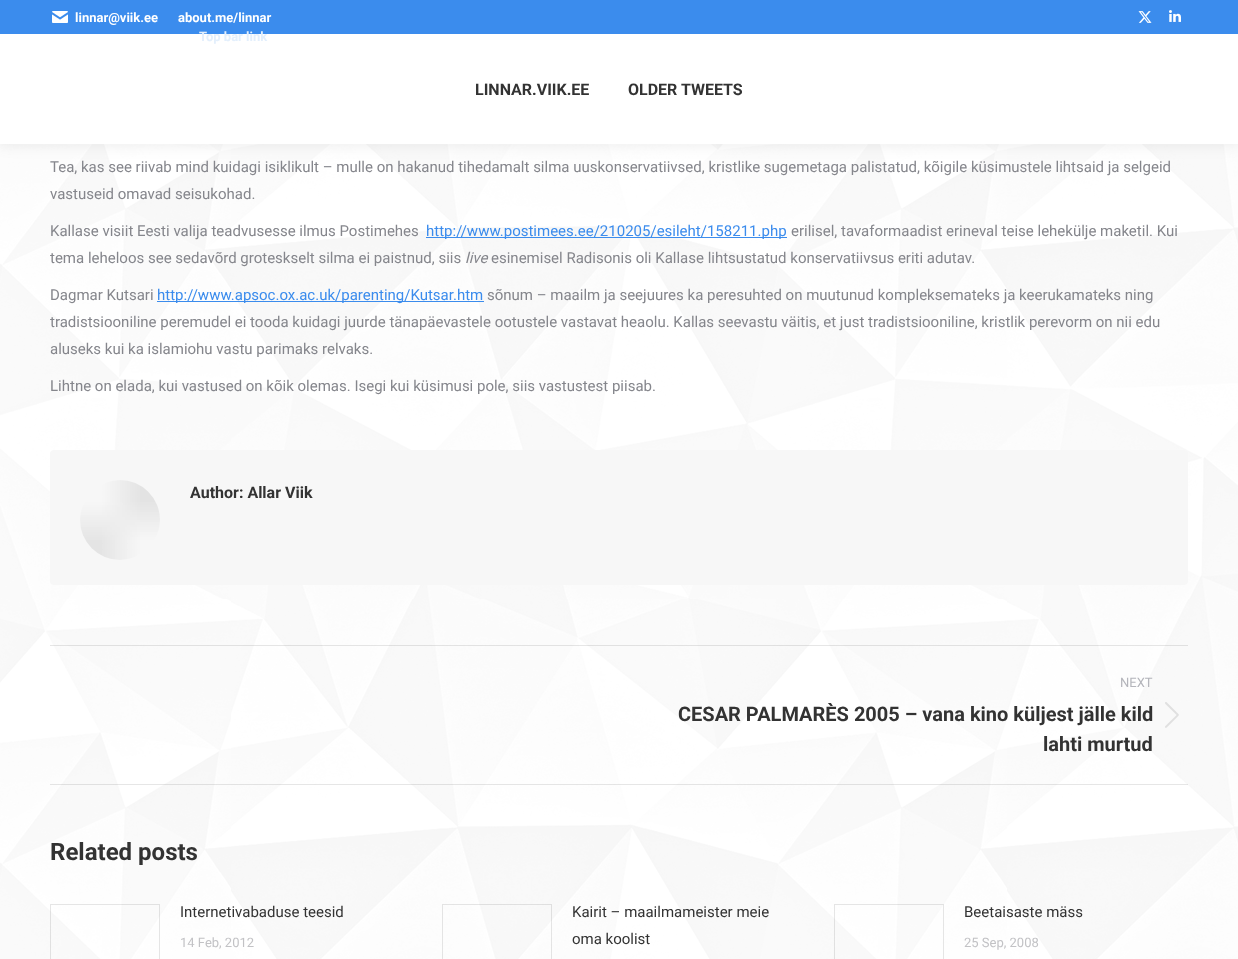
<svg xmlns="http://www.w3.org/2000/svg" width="1238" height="959">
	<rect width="100%" height="100%" fill="#FFFFFF" />
	<image x="0" y="144" width="1238" height="815" href="assets/img1.png" />
	<rect x="-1" y="-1" width="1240" height="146" fill="#000000" fill-opacity="0.07" filter="blur(7.5px)" />
	<rect x="0" y="34" width="1238" height="110" fill="#FFFFFF" />
	<rect x="0" y="0" width="1238" height="34" fill="#3B8CED" />
	<image x="52" y="11" width="16" height="12" href="assets/img2.png" />
	<g font-family="Roboto" font-size="13" font-weight="700" fill="#FFFFFF">
		<text x="75" y="22">linnar@viik.ee</text>
		<text x="178" y="22">about.me/linnar</text>
	</g>
	<text x="199" y="41" font-family="Roboto" font-size="13" font-weight="700" fill="#E3EFFC">Top bar link</text>
	<image x="1138" y="11" width="14" height="12" href="assets/img3.png" />
	<image x="1169" y="10" width="12" height="12" href="assets/img4.png" />
	<g font-family="Roboto" font-size="16" font-weight="700" fill="#333333">
		<text x="475" y="95">LINNAR.VIIK.EE</text>
		<text x="628" y="95">OLDER TWEETS</text>
	</g>
	<g font-family="Roboto" font-size="15" fill="#85868C">
		<text x="50" y="172">Tea, kas see riivab mind kuidagi isiklikult – mulle on hakanud tihedamalt silma uuskonservatiivsed, kristlike sugemetaga palistatud, kõigile küsimustele lihtsaid ja selgeid</text>
		<text x="50" y="199">vastuseid omavad seisukohad.</text>
		<text x="50" y="236">Kallase visiit Eesti valija teadvusesse ilmus Postimehes</text>
	</g>
	<rect x="426" y="237" width="361" height="1" fill="#3B8CED" />
	<text x="426" y="236" font-family="Roboto" font-size="15" fill="#3B8CED">http://www.postimees.ee/210205/esileht/158211.php</text>
	<g font-family="Roboto" font-size="15" fill="#85868C">
		<text x="791" y="236">erilisel, tavaformaadist erineval teise lehekülje maketil. Kui</text>
		<text x="50" y="263">tema leheloos see sedavõrd groteskselt silma ei paistnud, siis</text>
	</g>
	<text x="465" y="263" font-family="Roboto" font-size="15" font-style="italic" fill="#85868C">live</text>
	<g font-family="Roboto" font-size="15" fill="#85868C">
		<text x="491" y="263">esinemisel Radisonis oli Kallase lihtsustatud konservatiivsus eriti adutav.</text>
		<text x="50" y="300">Dagmar Kutsari</text>
	</g>
	<rect x="157" y="301" width="327" height="1" fill="#3B8CED" />
	<text x="157" y="300" font-family="Roboto" font-size="15" fill="#3B8CED">http://www.apsoc.ox.ac.uk/parenting/Kutsar.htm</text>
	<g font-family="Roboto" font-size="15" fill="#85868C">
		<text x="487" y="300">sõnum – maailm ja seejuures ka peresuhted on muutunud kompleksemateks ja keerukamateks ning</text>
		<text x="50" y="327">tradistsiooniline peremudel ei tooda kuidagi juurde tänapäevastele ootustele vastavat heaolu. Kallas seevastu väitis, et just tradistsiooniline, kristlik perevorm on nii edu</text>
		<text x="50" y="354">aluseks kui ka islamiohu vastu parimaks relvaks.</text>
		<text x="50" y="391">Lihtne on elada, kui vastused on kõik olemas. Isegi kui küsimusi pole, siis vastustest piisab.</text>
	</g>
	<rect x="50" y="450" width="1138" height="135" rx="4" fill="#F7F7F7" />
	<image x="80" y="480" width="80" height="80" href="assets/img5.png" />
	<text x="190" y="498" font-family="Roboto" font-size="16" font-weight="700" fill="#333333">Author: Allar Viik</text>
	<rect x="50" y="645" width="1138" height="1" fill="#333333" fill-opacity="0.12" />
	<rect x="50" y="784" width="1138" height="1" fill="#333333" fill-opacity="0.12" />
	<text x="1120" y="687" font-family="Roboto" font-size="13" fill="#B4B5BB">NEXT</text>
	<g font-family="Roboto" font-size="20" font-weight="700" fill="#333333">
		<text x="678" y="721">CESAR PALMARÈS 2005 – vana kino küljest jälle kild</text>
		<text x="1043" y="751">lahti murtud</text>
	</g>
	<image x="1165" y="702" width="14" height="26" href="assets/img6.png" />
	<text x="50" y="860" font-family="Roboto" font-size="24" font-weight="700" fill="#333333">Related posts</text>
	<rect x="50.5" y="904.5" width="109" height="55" fill="none" stroke="#333333" stroke-opacity="0.12" />
	<text x="180" y="917" font-family="Roboto" font-size="15" fill="#333333">Internetivabaduse teesid</text>
	<text x="180" y="947" font-family="Roboto" font-size="13" fill="#C2C2C5">14 Feb, 2012</text>
	<rect x="442.5" y="904.5" width="109" height="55" fill="none" stroke="#333333" stroke-opacity="0.12" />
	<g font-family="Roboto" font-size="15" fill="#333333">
		<text x="572" y="917">Kairit – maailmameister meie</text>
		<text x="572" y="944">oma koolist</text>
	</g>
	<rect x="834.5" y="904.5" width="109" height="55" fill="none" stroke="#333333" stroke-opacity="0.12" />
	<text x="964" y="917" font-family="Roboto" font-size="15" fill="#333333">Beetaisaste mäss</text>
	<text x="964" y="947" font-family="Roboto" font-size="13" fill="#C2C2C5">25 Sep, 2008</text>
</svg>
